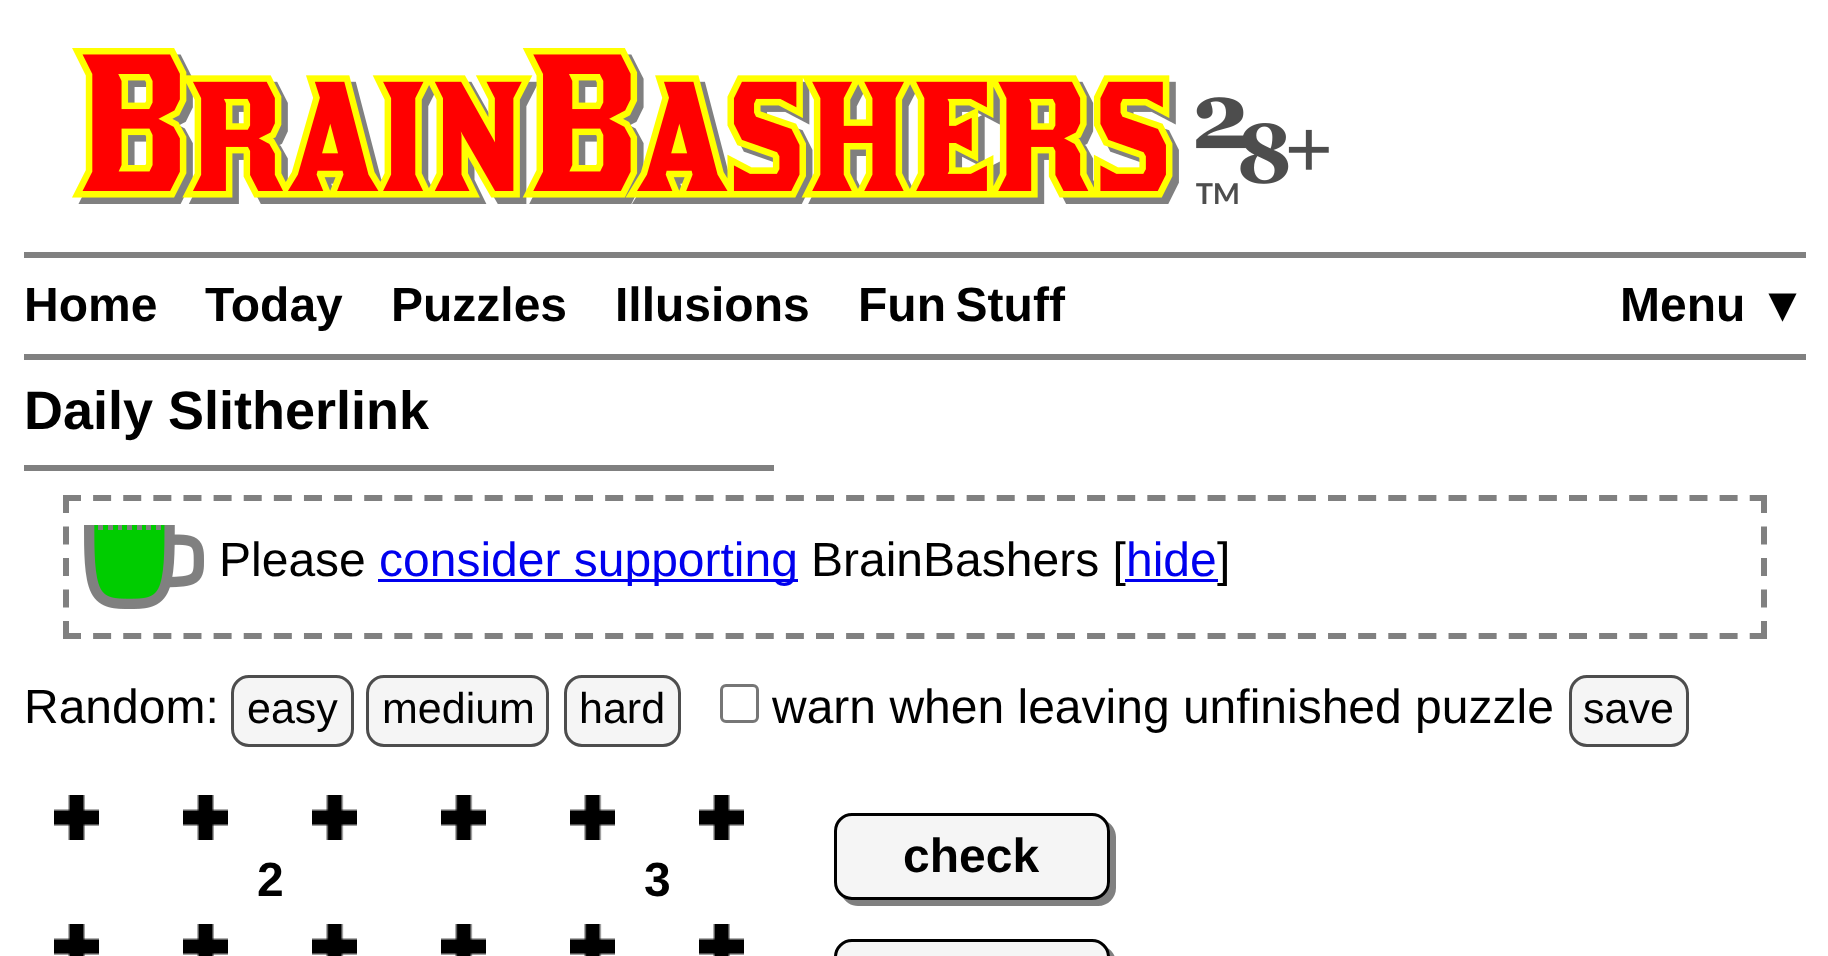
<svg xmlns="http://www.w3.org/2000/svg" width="1828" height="956">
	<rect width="100%" height="100%" fill="#FFFFFF" />
	<image x="72" y="48" width="1257" height="156" href="assets/img1.png" />
	<rect x="24" y="252" width="1782" height="6" fill="#808080" />
	<g font-family="Liberation Sans" font-size="48" font-weight="700" fill="#000000">
		<text x="24" y="321">Home</text>
		<text x="205" y="321">Today</text>
		<text x="391" y="321">Puzzles</text>
		<text x="615" y="321">Illusions</text>
		<text x="858" y="321">Fun Stuff</text>
		<text x="1620" y="321">Menu ▼</text>
	</g>
	<rect x="24" y="354" width="1782" height="6" fill="#808080" />
	<text x="24" y="429" font-family="Liberation Sans" font-size="54" font-weight="700" fill="#000000">Daily Slitherlink</text>
	<rect x="24" y="465" width="750" height="6" fill="#808080" />
	<path d="M63 498H1767" fill="none" stroke="#808080" stroke-width="6" stroke-dasharray="18 12.12" />
	<path d="M1764 495V639" fill="none" stroke="#808080" stroke-width="6" stroke-dasharray="18 13.5" />
	<path d="M63 636H1767" fill="none" stroke="#808080" stroke-width="6" stroke-dasharray="18 12.12" />
	<path d="M66 495V639" fill="none" stroke="#808080" stroke-width="6" stroke-dasharray="18 13.5" />
	<image x="84" y="525" width="120" height="84" href="assets/img2.png" />
	<text x="219" y="576" font-family="Liberation Sans" font-size="48" fill="#000000">Please</text>
	<rect x="378" y="579" width="420" height="3" fill="#0000EE" />
	<text x="379" y="576" font-family="Liberation Sans" font-size="48" fill="#0000EE">consider supporting</text>
	<text x="811" y="576" font-family="Liberation Sans" font-size="48" fill="#000000">BrainBashers [</text>
	<rect x="1125" y="579" width="93" height="3" fill="#0000EE" />
	<text x="1126" y="576" font-family="Liberation Sans" font-size="48" fill="#0000EE">hide</text>
	<g font-family="Liberation Sans" font-size="48" fill="#000000">
		<text x="1217" y="576">]</text>
		<text x="24" y="723">Random:</text>
	</g>
	<rect x="232.5" y="676.5" width="120" height="69" rx="16.5" fill="#F5F5F5" stroke="#4D4D4D" stroke-width="3" />
	<text x="247" y="723" font-family="Liberation Sans" font-size="43" fill="#000000">easy</text>
	<rect x="367.5" y="676.5" width="180" height="69" rx="16.5" fill="#F5F5F5" stroke="#4D4D4D" stroke-width="3" />
	<text x="382" y="723" font-family="Liberation Sans" font-size="43" fill="#000000">medium</text>
	<rect x="565.5" y="676.5" width="114" height="69" rx="16.5" fill="#F5F5F5" stroke="#4D4D4D" stroke-width="3" />
	<text x="579" y="723" font-family="Liberation Sans" font-size="43" fill="#000000">hard</text>
	<rect x="721.5" y="685.5" width="36" height="36" rx="4.5" fill="none" stroke="#767676" stroke-width="3" />
	<text x="772" y="723" font-family="Liberation Sans" font-size="48" fill="#000000">warn when leaving unfinished puzzle</text>
	<rect x="1570.5" y="676.5" width="117" height="69" rx="16.5" fill="#F5F5F5" stroke="#4D4D4D" stroke-width="3" />
	<text x="1583" y="723" font-family="Liberation Sans" font-size="43" fill="#000000">save</text>
	<path d="M842 896C845 902 851 906 858 906H1098C1108 906 1116 898 1116 888V837C1116 830 1112 824 1106 821C1109 824 1110 828 1110 832V881C1110 891 1101 900 1091 900H853C849 900 845 899 842 896Z" fill="#808080" />
	<rect x="835.5" y="814.5" width="273" height="84" rx="16.5" fill="#F5F5F5" stroke="#000000" stroke-width="3" />
	<text x="903" y="872" font-family="Liberation Sans" font-size="48" font-weight="700" fill="#000000">check</text>
	<path d="M842 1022C845 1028 851 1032 858 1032H1098C1108 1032 1116 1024 1116 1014V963C1116 956 1112 950 1106 947C1109 950 1110 954 1110 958V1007C1110 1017 1101 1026 1091 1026H853C849 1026 845 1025 842 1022Z" fill="#808080" />
	<rect x="835.5" y="940.5" width="273" height="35" rx="16.5" fill="#F5F5F5" stroke="#000000" stroke-width="3" />
	<image x="54" y="795" width="45" height="45" href="assets/img3.png" />
	<image x="183" y="795" width="45" height="45" href="assets/img3.png" />
	<image x="312" y="795" width="45" height="45" href="assets/img4.png" />
	<image x="441" y="795" width="45" height="45" href="assets/img4.png" />
	<image x="570" y="795" width="45" height="45" href="assets/img4.png" />
	<image x="699" y="795" width="45" height="45" href="assets/img3.png" />
	<g font-family="Liberation Sans" font-size="48" font-weight="700" fill="#000000">
		<text x="257" y="896">2</text>
		<text x="644" y="896">3</text>
	</g>
	<image x="54" y="924" width="45" height="32" href="assets/img5.png" />
	<image x="183" y="924" width="45" height="32" href="assets/img5.png" />
	<image x="312" y="924" width="45" height="32" href="assets/img6.png" />
	<image x="441" y="924" width="45" height="32" href="assets/img6.png" />
	<image x="570" y="924" width="45" height="32" href="assets/img6.png" />
	<image x="699" y="924" width="45" height="32" href="assets/img5.png" />
</svg>
